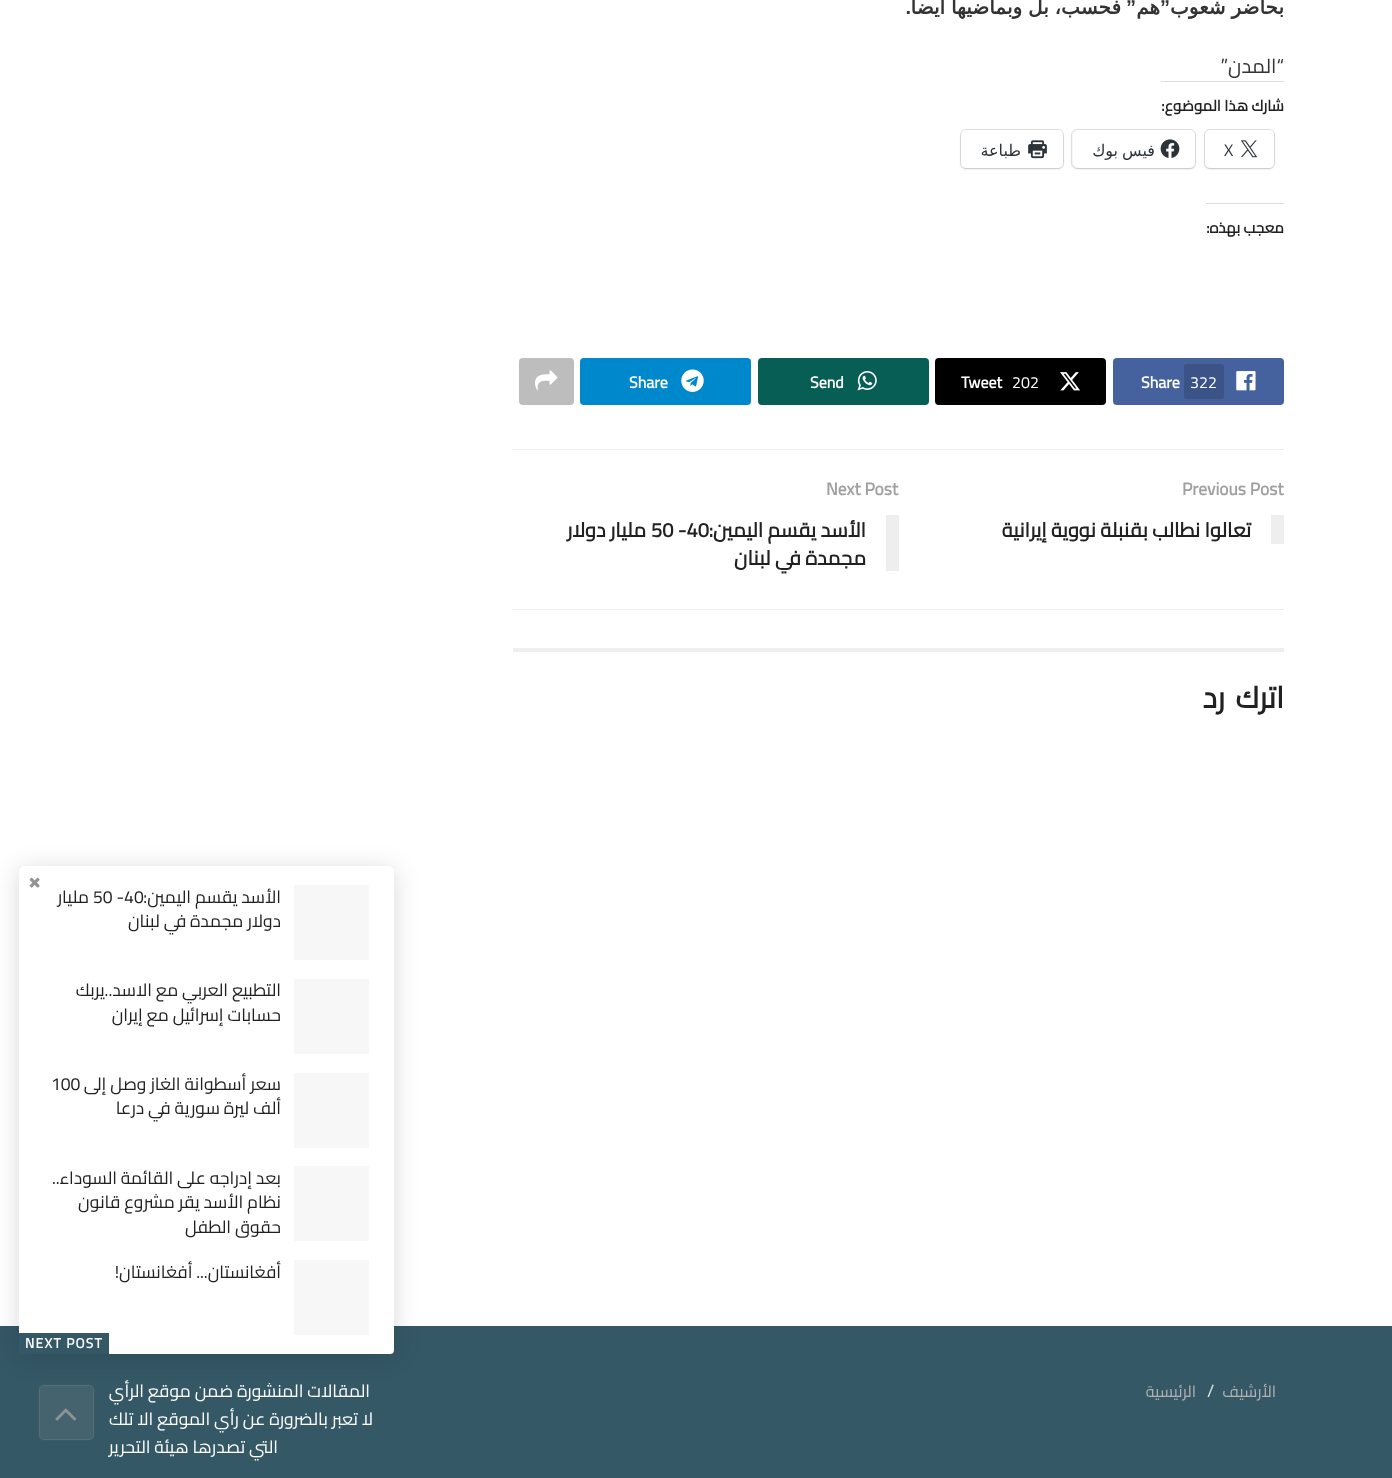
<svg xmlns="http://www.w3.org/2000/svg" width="1392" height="1478">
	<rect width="100%" height="100%" fill="#FFFFFF" />
	<text x="1284" y="14" word-spacing="-0.5" font-family="DejaVu Sans" font-size="20" font-weight="700" direction="rtl" fill="#333333">بحاضر شعوب</text>
	<text x="1170" y="14" font-family="Liberation Sans" font-size="20" font-weight="700" direction="rtl" fill="#333333">”</text>
	<text x="1160" y="14" font-family="DejaVu Sans" font-size="20" font-weight="700" direction="rtl" fill="#333333">هم</text>
	<text x="1136" y="14" font-family="Liberation Sans" font-size="20" font-weight="700" direction="rtl" fill="#333333">”</text>
	<text x="1121" y="14" word-spacing="-0.5" font-family="DejaVu Sans" font-size="20" font-weight="700" direction="rtl" fill="#333333">فحسب، بل وبماضيها أيضاً</text>
	<text x="911" y="14" font-family="Liberation Sans" font-size="20" font-weight="700" direction="rtl" fill="#333333">.</text>
	<text x="1284" y="73" font-family="Cairo" font-size="20" direction="rtl" fill="#333333">“المدن”</text>
	<rect x="1161" y="81" width="123" height="1" fill="#DCDCDE" />
	<text x="1284" y="111" font-family="Cairo" font-size="15" font-weight="700" direction="rtl" fill="#212121">شارك هذا الموضوع:</text>
	<rect x="1204.5" y="129.5" width="70" height="39" rx="5.5" fill="none" stroke="#E0E0E0" />
	<rect x="1205" y="131" width="69" height="38" rx="5" fill="#000000" fill-opacity="0.12" filter="blur(1px)" />
	<rect x="1205" y="130" width="69" height="38" rx="5" fill="#FFFFFF" />
	<image x="1240" y="140" width="18" height="18" href="assets/img1.png" />
	<text x="1224" y="156" font-family="Open Sans" font-size="16" fill="#2C3338">X</text>
	<rect x="1071.5" y="129.5" width="124" height="39" rx="5.5" fill="none" stroke="#E0E0E0" />
	<rect x="1073" y="131" width="122" height="38" rx="5" fill="#000000" fill-opacity="0.12" filter="blur(1px)" />
	<rect x="1073" y="130" width="122" height="38" rx="5" fill="#FFFFFF" />
	<image x="1160" y="139" width="20" height="19" href="assets/img2.png" />
	<text x="1155" y="156" word-spacing="-1" font-family="DejaVu Sans" font-size="16" direction="rtl" fill="#2C3338">فيس بوك</text>
	<rect x="960.5" y="129.5" width="103" height="39" rx="5.5" fill="none" stroke="#E0E0E0" />
	<rect x="961" y="131" width="102" height="38" rx="5" fill="#000000" fill-opacity="0.12" filter="blur(1px)" />
	<rect x="961" y="130" width="102" height="38" rx="5" fill="#FFFFFF" />
	<image x="1028" y="140" width="19" height="19" href="assets/img3.png" />
	<text x="1021" y="156" font-family="DejaVu Sans" font-size="16" direction="rtl" fill="#2C3338">طباعة</text>
	<rect x="1206" y="203" width="78" height="1" fill="#DCDCDE" />
	<text x="1284" y="233" font-family="Cairo" font-size="15" font-weight="700" direction="rtl" fill="#212121">معجب بهذه:</text>
	<rect x="1113" y="358" width="171" height="47" rx="4" fill="#45629F" />
	<image x="1236" y="371" width="20" height="20" href="assets/img4.png" />
	<rect x="1184" y="364" width="40" height="35" rx="2.5" fill="#3B5387" />
	<text x="1190" y="388" font-family="Cairo" font-size="16" fill="#FFFFFF">322</text>
	<text x="1141" y="388" font-family="Cairo" font-size="16" font-weight="700" fill="#FFFFFF">Share</text>
	<rect x="935" y="358" width="171" height="47" rx="4" fill="#000000" />
	<image x="1060" y="372" width="20" height="19" href="assets/img5.png" />
	<text x="1012" y="388" font-family="Cairo" font-size="16" fill="#FFFFFF">202</text>
	<text x="961" y="388" font-family="Cairo" font-size="16" font-weight="700" fill="#FFFFFF">Tweet</text>
	<rect x="758" y="358" width="171" height="47" rx="4" fill="#075E54" />
	<image x="857" y="371" width="20" height="20" href="assets/img6.png" />
	<text x="810" y="388" font-family="Cairo" font-size="16" font-weight="700" fill="#FFFFFF">Send</text>
	<rect x="580" y="358" width="171" height="47" rx="4" fill="#0088CC" />
	<image x="681" y="369" width="23" height="23" href="assets/img7.png" />
	<text x="629" y="388" font-family="Cairo" font-size="16" font-weight="700" fill="#FFFFFF">Share</text>
	<rect x="519" y="358" width="55" height="47" rx="4" fill="#BDBDBD" />
	<image x="535" y="370" width="23" height="21" href="assets/img8.png" />
	<rect x="513" y="449" width="771" height="1" fill="#EEEEEE" />
	<rect x="513" y="609" width="771" height="1" fill="#EEEEEE" />
	<text x="1182" y="495" font-family="Cairo" font-size="17.5" font-weight="700" fill="#A0A0A0">Previous Post</text>
	<rect x="1271" y="515" width="13" height="29" fill="#EEEEEE" />
	<text x="1251" y="537" font-family="Cairo" font-size="20" font-weight="700" direction="rtl" fill="#212121">تعالوا نطالب بقنبلة نووية إيرانية</text>
	<text x="826" y="495" font-family="Cairo" font-size="17.5" font-weight="700" fill="#A0A0A0">Next Post</text>
	<rect x="886" y="515" width="13" height="56" fill="#EEEEEE" />
	<text x="866" y="537" font-family="Cairo" font-size="20" font-weight="700" direction="rtl" fill="#212121">الأسد يقسم اليمين:</text>
	<text x="651" y="537" font-family="Cairo" font-size="20" font-weight="700" fill="#212121">50 -40</text>
	<g font-family="Cairo" font-size="20" font-weight="700" direction="rtl" fill="#212121">
		<text x="646" y="537">مليار دولار</text>
		<text x="866" y="565">مجمدة في لبنان</text>
	</g>
	<rect x="513" y="648" width="771" height="4" fill="#EEEEEE" />
	<text x="1284" y="708" word-spacing="4" font-family="Cairo" font-size="30" font-weight="700" letter-spacing="-0.5" direction="rtl" fill="#212121">اترك رد</text>
	<rect x="0" y="1326" width="1392" height="152" fill="#355866" />
	<rect x="19" y="869" width="375" height="487" rx="4" fill="#000000" fill-opacity="0.15" filter="blur(12.5px)" />
	<rect x="19" y="866" width="375" height="488" rx="4" fill="#000000" fill-opacity="0.2" filter="blur(0.5px)" />
	<rect x="19" y="866" width="375" height="488" rx="4" fill="#FFFFFF" />
	<image x="29" y="877" width="11" height="11" href="assets/img9.png" />
	<rect x="294" y="885" width="75" height="75" fill="#F7F7F7" />
	<text x="281" y="903" font-family="Cairo" font-size="17.5" direction="rtl" fill="#212121">الأسد يقسم اليمين:</text>
	<text x="93" y="903" font-family="Cairo" font-size="17.5" fill="#212121">50 -40</text>
	<g font-family="Cairo" font-size="17.5" direction="rtl" fill="#212121">
		<text x="89" y="903">مليار</text>
		<text x="281" y="927">دولار مجمدة في لبنان</text>
	</g>
	<rect x="294" y="979" width="75" height="75" fill="#F7F7F7" />
	<g font-family="Cairo" font-size="17.5" direction="rtl" fill="#212121">
		<text x="281" y="996">التطبيع العربي مع الاسد..يربك</text>
		<text x="281" y="1021">حسابات إسرائيل مع إيران</text>
	</g>
	<rect x="294" y="1073" width="75" height="75" fill="#F7F7F7" />
	<text x="281" y="1090" font-family="Cairo" font-size="17.5" direction="rtl" fill="#212121">سعر أسطوانة الغاز وصل إلى</text>
	<text x="51" y="1090" font-family="Cairo" font-size="17.5" fill="#212121">100</text>
	<text x="281" y="1114" font-family="Cairo" font-size="17.5" direction="rtl" fill="#212121">ألف ليرة سورية في درعا</text>
	<rect x="294" y="1166" width="75" height="75" fill="#F7F7F7" />
	<g font-family="Cairo" font-size="17.5" direction="rtl" fill="#212121">
		<text x="281" y="1184">بعد إدراجه على القائمة السوداء..</text>
		<text x="281" y="1208">نظام الأسد يقر مشروع قانون</text>
		<text x="281" y="1233">حقوق الطفل</text>
	</g>
	<rect x="294" y="1260" width="75" height="75" fill="#F7F7F7" />
	<text x="281" y="1278" font-family="Cairo" font-size="17.5" direction="rtl" fill="#212121">أفغانستان... أفغانستان!</text>
	<rect x="19" y="1333" width="90" height="21" fill="#355866" />
	<text x="25" y="1348" font-family="Cairo" font-size="13.75" font-weight="700" letter-spacing="1.25" fill="#FFFFFF">NEXT POST</text>
	<text x="1276" y="1397" font-family="Cairo" font-size="16" direction="rtl" fill="#B2B2B2">الأرشيف</text>
	<text x="1207" y="1397" font-family="Cairo" font-size="17.5" fill="#E0E0E0">/</text>
	<text x="1196" y="1397" font-family="Cairo" font-size="16" direction="rtl" fill="#B2B2B2">الرئيسية</text>
	<g font-family="Cairo" font-size="17.5" direction="rtl" fill="#FFFFFF">
		<text x="370" y="1397">المقالات المنشورة ضمن موقع الرأي</text>
		<text x="373" y="1425">لا تعبر بالضرورة عن رأي الموقع الا تلك</text>
		<text x="278" y="1453">التي تصدرها هيئة التحرير</text>
	</g>
	<rect x="38" y="1384" width="57" height="57" rx="6" fill="#44636F" />
	<rect x="39.5" y="1385.5" width="54" height="54" rx="4.5" fill="none" stroke="#536F7A" />
	<rect x="38.5" y="1384.5" width="56" height="56" rx="5.5" fill="none" stroke="#0B1214" stroke-opacity="0.11" />
	<image x="55" y="1408" width="22" height="13" href="assets/img10.png" />
</svg>
